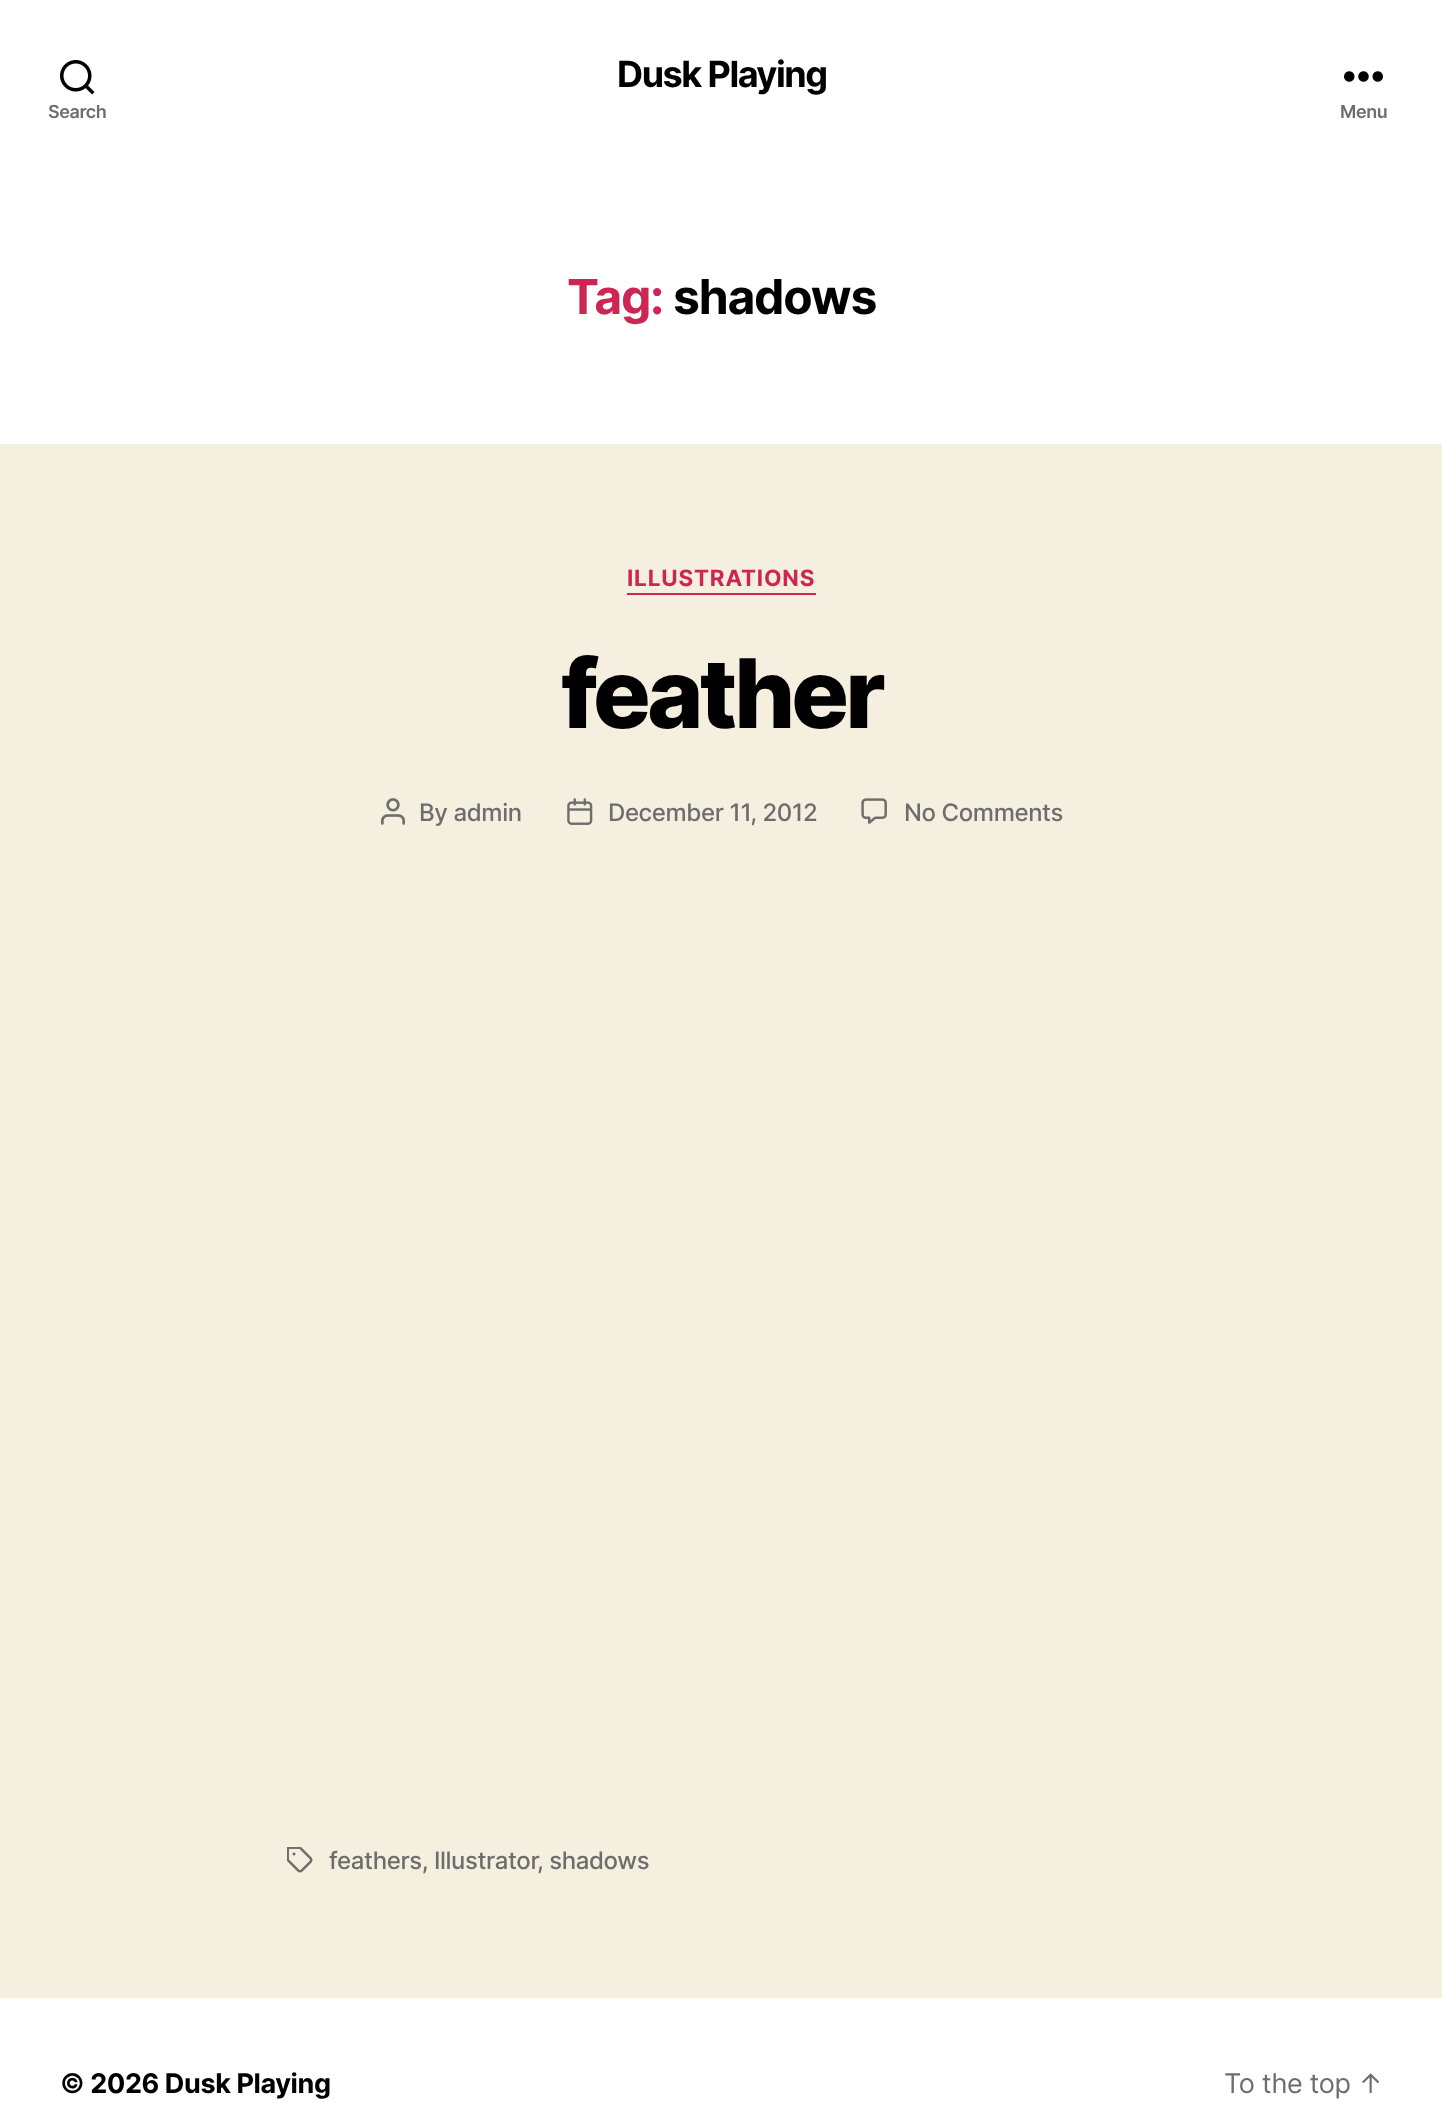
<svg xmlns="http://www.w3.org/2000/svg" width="1442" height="2103">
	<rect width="100%" height="100%" fill="#F5EFE0" />
	<rect x="0" y="0" width="1442" height="444" fill="#FFFFFF" />
	<text x="617" y="87" font-family="Inter" font-size="36" font-weight="700" letter-spacing="-1.5" fill="#000000">Dusk Playing</text>
	<image x="60" y="60" width="35" height="35" href="assets/img1.png" />
	<text x="48" y="118" font-family="Inter" font-size="18" font-weight="600" letter-spacing="-0.4" fill="#6D6D6D">Search</text>
	<image x="1344" y="71" width="39" height="11" href="assets/img2.png" />
	<text x="1340" y="118" font-family="Inter" font-size="18" font-weight="600" letter-spacing="-0.4" fill="#6D6D6D">Menu</text>
	<text x="567" y="314" font-family="Inter" font-size="48" font-weight="700" letter-spacing="-1.25" fill="#CD2653">Tag:</text>
	<text x="673" y="314" font-family="Inter" font-size="48" font-weight="700" letter-spacing="-1.25" fill="#000000">shadows</text>
	<rect x="627" y="593" width="189" height="2" fill="#CD2653" />
	<text x="627" y="586" font-family="Inter" font-size="22.5" font-weight="700" letter-spacing="0.8" fill="#CD2653">ILLUSTRATIONS</text>
	<text x="561" y="728" font-family="Inter" font-size="96" font-weight="800" letter-spacing="-4" fill="#000000">feather</text>
	<image x="381" y="798" width="24" height="27" href="assets/img3.png" />
	<text x="419" y="821" font-family="Inter" font-size="24" font-weight="500" letter-spacing="-0.4" fill="#6D6D6D">By admin</text>
	<image x="567" y="798" width="26" height="27" href="assets/img4.png" />
	<text x="608" y="821" font-family="Inter" font-size="24" font-weight="500" letter-spacing="-0.4" fill="#6D6D6D">December 11, 2012</text>
	<image x="861" y="798" width="26" height="26" href="assets/img5.png" />
	<text x="904" y="821" font-family="Inter" font-size="24" font-weight="500" letter-spacing="-0.4" fill="#6D6D6D">No Comments</text>
	<image x="287" y="1847" width="26" height="26" href="assets/img6.png" />
	<g font-family="Inter" font-size="24" font-weight="500" letter-spacing="-0.4" fill="#6D6D6D">
		<text x="329" y="1869">feathers, Illustrator</text>
		<text x="537" y="1869">, shadows</text>
	</g>
	<rect x="0" y="1998" width="1442" height="105" fill="#FFFFFF" />
	<text x="60" y="2093" font-family="Inter" font-size="27" font-weight="700" letter-spacing="-0.4" fill="#000000">© 2026 Dusk Playing</text>
	<text x="1224" y="2093" font-family="Inter" font-size="27" letter-spacing="-0.4" fill="#6D6D6D">To the top ↑</text>
</svg>
